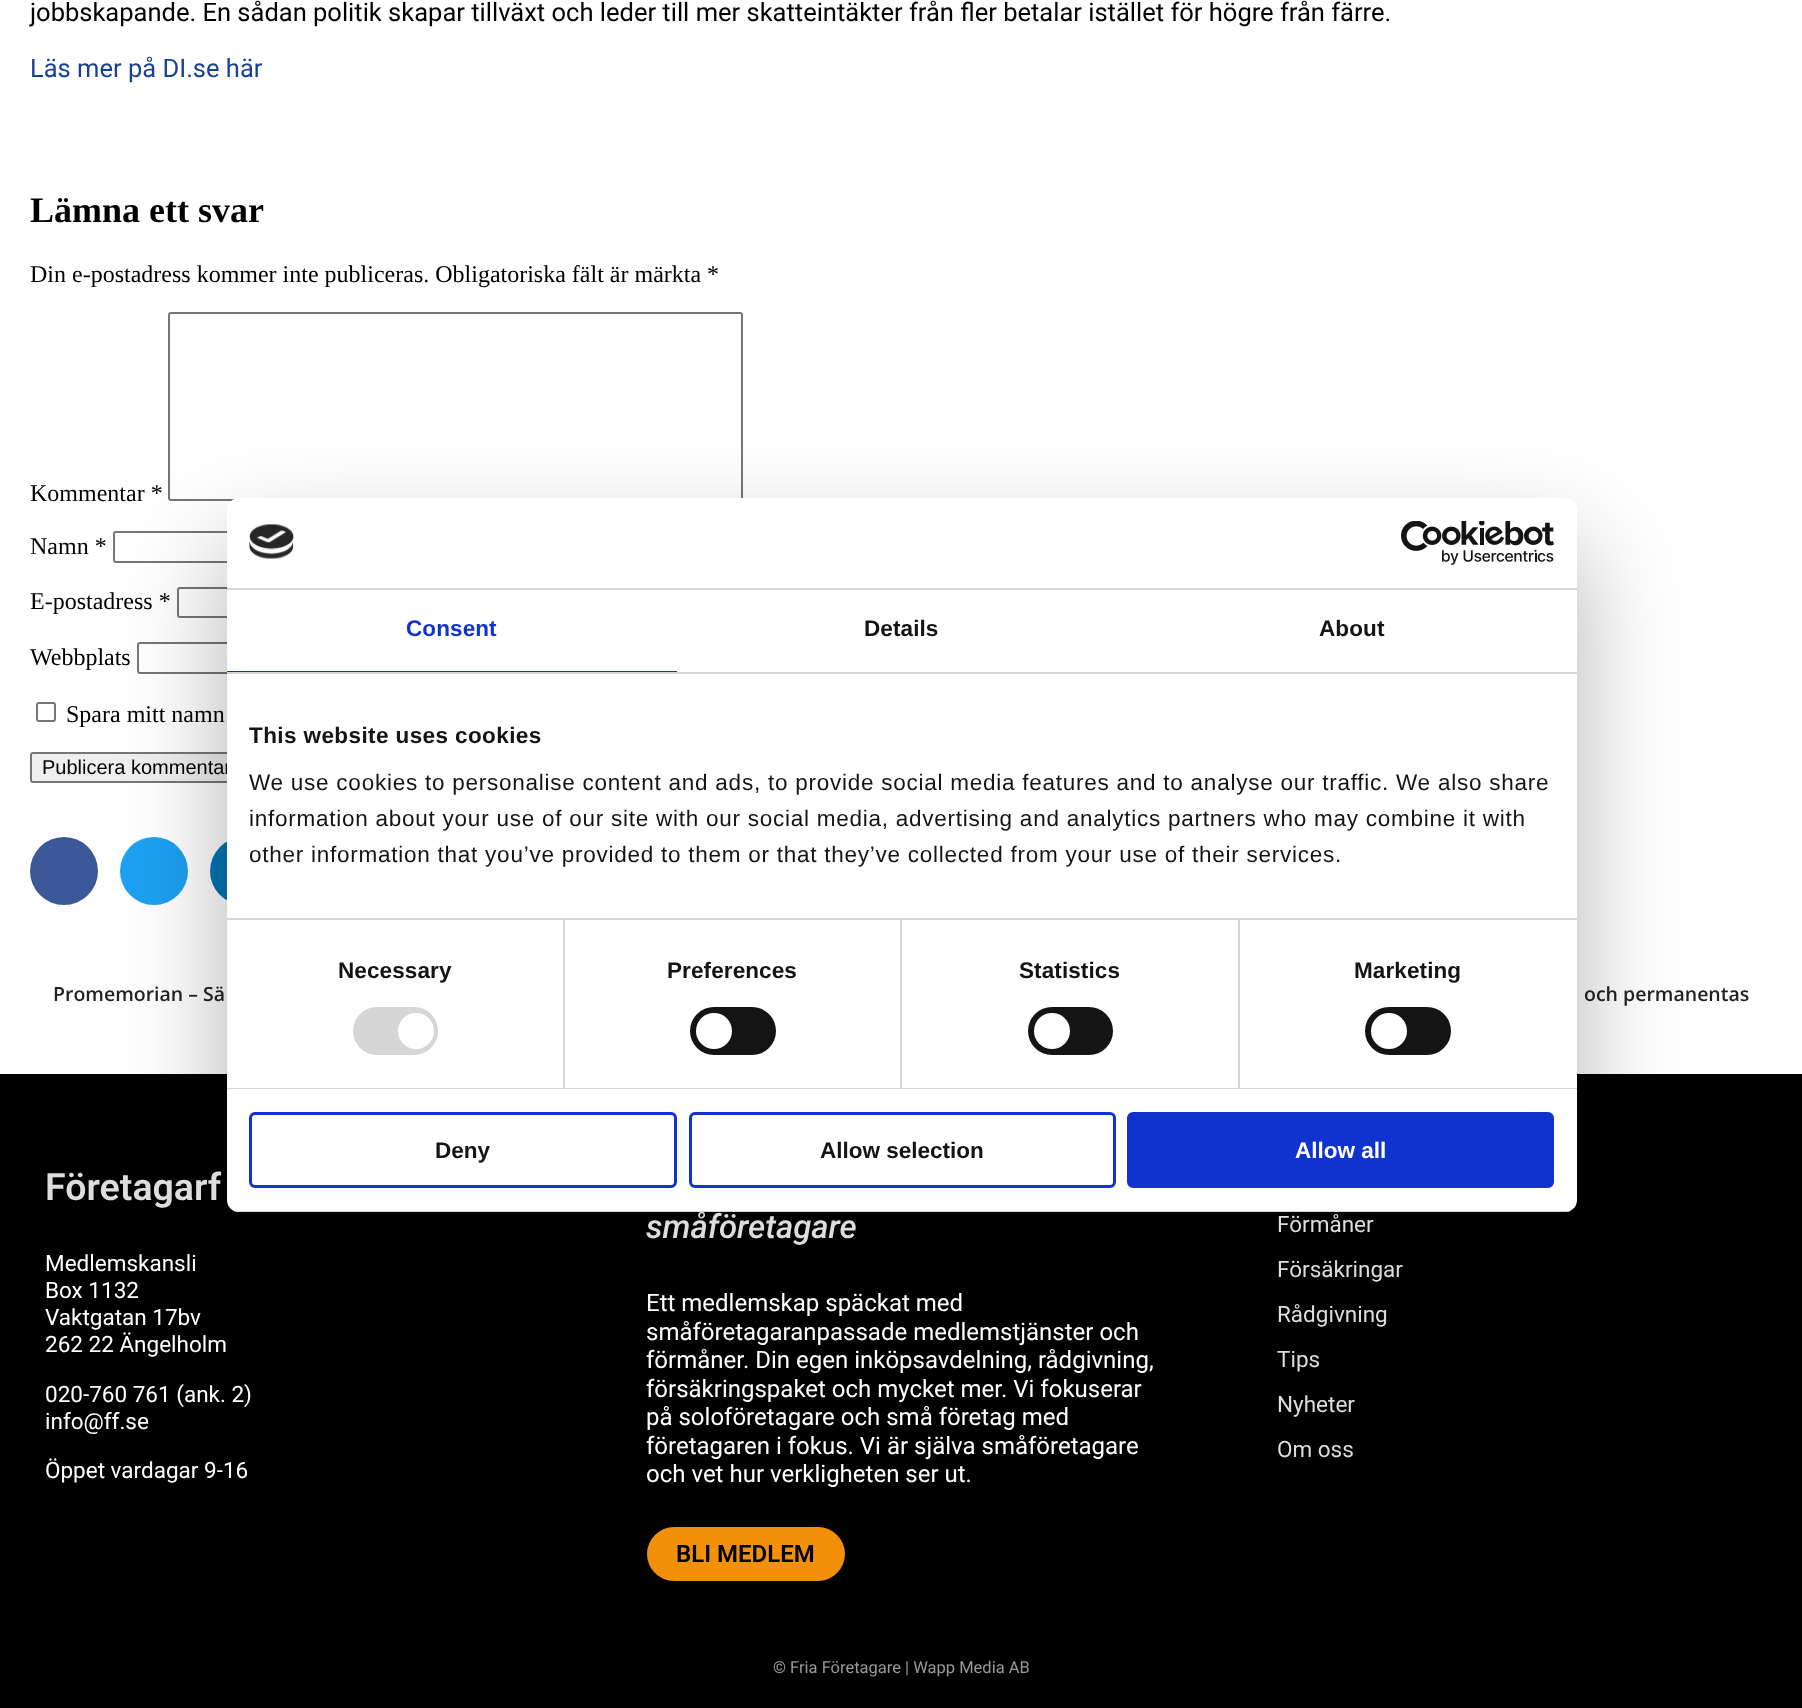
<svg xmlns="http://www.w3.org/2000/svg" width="1802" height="1708">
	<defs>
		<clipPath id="clip1"><rect x="227" y="498" width="1350" height="714" rx="12" /></clipPath>
	</defs>
	<rect width="100%" height="100%" fill="#FFFFFF" />
	<text x="30" y="21" font-family="Roboto" font-size="25.5" fill="#000000">jobbskapande. En sådan politik skapar tillväxt och leder till mer skatteintäkter från fler betalar istället för högre från färre.</text>
	<text x="30" y="77" font-family="Roboto" font-size="25.5" fill="#164194">Läs mer på DI.se här</text>
	<text x="30" y="222" font-family="Liberation Serif" font-size="36" font-weight="700" fill="#000000">Lämna ett svar</text>
	<g font-family="Liberation Serif" font-size="24" fill="#000000">
		<text x="30" y="282">Din e-postadress kommer inte publiceras. Obligatoriska fält är märkta *</text>
		<text x="30" y="501">Kommentar *</text>
	</g>
	<rect x="169" y="313" width="573" height="187" rx="2" fill="none" stroke="#767676" stroke-width="2" />
	<text x="30" y="554" font-family="Liberation Serif" font-size="24" fill="#000000">Namn *</text>
	<rect x="114" y="532" width="395" height="30" rx="2" fill="none" stroke="#767676" stroke-width="2" />
	<text x="30" y="609" font-family="Liberation Serif" font-size="24" fill="#000000">E-postadress *</text>
	<rect x="178" y="588" width="396" height="29" rx="2" fill="none" stroke="#767676" stroke-width="2" />
	<text x="30" y="665" font-family="Liberation Serif" font-size="24" fill="#000000">Webbplats</text>
	<rect x="138" y="643" width="395" height="30" rx="2" fill="none" stroke="#767676" stroke-width="2" />
	<rect x="37" y="703" width="18" height="18" rx="2" fill="none" stroke="#767676" stroke-width="2" />
	<text x="66" y="722" font-family="Liberation Serif" font-size="24" fill="#000000">Spara mitt namn</text>
	<rect x="31" y="753" width="211" height="29" rx="2" fill="#EFEFEF" stroke="#767676" stroke-width="2" />
	<text x="42" y="774" font-family="Liberation Sans" font-size="20" fill="#000000">Publicera kommentar</text>
	<circle cx="64" cy="871" r="34" fill="#3B5998" />
	<circle cx="154" cy="871" r="34" fill="#1DA1F2" />
	<circle cx="244" cy="871" r="34" fill="#0077B5" />
	<g font-family="Open Sans" font-size="19.5" font-weight="600" fill="#222222">
		<text x="53" y="1001">Promemorian – Sä</text>
		<text x="1584" y="1001">och permanentas</text>
	</g>
	<rect x="0" y="1074" width="1802" height="634" fill="#000000" />
	<rect x="227" y="546" width="1350" height="714" rx="12" fill="#000000" fill-opacity="0.3" filter="blur(51px)" />
	<text x="646" y="1238" font-family="Roboto" font-size="33" font-weight="500" font-style="italic" fill="#DDDDDD">småföretagare</text>
	<rect x="227" y="498" width="1350" height="714" rx="12" fill="#FFFFFF" />
	<rect x="227" y="588" width="1350" height="2" fill="#D6D6D6" />
	<image x="249" y="524" width="45" height="35" href="assets/img1.png" />
	<image x="1401" y="521" width="153" height="44" href="assets/img2.png" />
	<rect x="227" y="672" width="1350" height="2" fill="#D6D6D6" />
	<rect x="227" y="671" width="450" height="1" fill="#1032CF" />
	<text x="406" y="636" font-family="Liberation Sans" font-size="22.5" font-weight="700" letter-spacing="0.1" fill="#1032CF">Consent</text>
	<g font-family="Liberation Sans" font-size="22.5" font-weight="700" letter-spacing="0.1" fill="#141414">
		<text x="864" y="636">Details</text>
		<text x="1319" y="636">About</text>
	</g>
	<rect x="227" y="918" width="1350" height="2" fill="#D6D6D6" />
	<text x="249" y="743" font-family="Liberation Sans" font-size="22.5" font-weight="700" letter-spacing="0.4" fill="#141414">This website uses cookies</text>
	<g font-family="Liberation Sans" font-size="22.5" letter-spacing="0.75" fill="#141414">
		<text x="249" y="790">We use cookies to personalise content and ads, to provide social media features and to analyse our traffic. We also share</text>
		<text x="249" y="826">information about your use of our site with our social media, advertising and analytics partners who may combine it with</text>
		<text x="249" y="862">other information that you’ve provided to them or that they’ve collected from your use of their services.</text>
	</g>
	<rect x="227" y="1088" width="1350" height="1" fill="#D6D6D6" />
	<rect x="563" y="920" width="2" height="168" fill="#D6D6D6" />
	<text x="338" y="978" font-family="Liberation Sans" font-size="22.5" font-weight="700" letter-spacing="0.1" fill="#141414">Necessary</text>
	<rect x="353" y="1007" width="85" height="48" rx="24" fill="#D6D6D6" />
	<circle cx="416" cy="1031" r="18" fill="#FFFFFF" />
	<rect x="900" y="920" width="2" height="168" fill="#D6D6D6" />
	<text x="667" y="978" font-family="Liberation Sans" font-size="22.5" font-weight="700" letter-spacing="0.1" fill="#141414">Preferences</text>
	<rect x="690" y="1007" width="86" height="48" rx="24" fill="#141414" />
	<circle cx="714" cy="1031" r="18" fill="#FFFFFF" />
	<rect x="1238" y="920" width="2" height="168" fill="#D6D6D6" />
	<text x="1019" y="978" font-family="Liberation Sans" font-size="22.5" font-weight="700" letter-spacing="0.1" fill="#141414">Statistics</text>
	<rect x="1028" y="1007" width="85" height="48" rx="24" fill="#141414" />
	<circle cx="1052" cy="1031" r="18" fill="#FFFFFF" />
	<text x="1354" y="978" font-family="Liberation Sans" font-size="22.5" font-weight="700" letter-spacing="0.1" fill="#141414">Marketing</text>
	<rect x="1365" y="1007" width="86" height="48" rx="24" fill="#141414" />
	<circle cx="1389" cy="1031" r="18" fill="#FFFFFF" />
	<g clip-path="url(#clip1)">
		<rect x="227" y="1211" width="1350" height="1" fill="#D6D6D6" />
	</g>
	<rect x="250.5" y="1113.5" width="425" height="73" rx="4.5" fill="none" stroke="#1032CF" stroke-width="3" />
	<text x="435" y="1158" font-family="Liberation Sans" font-size="22.5" font-weight="700" fill="#141414">Deny</text>
	<rect x="690.5" y="1113.5" width="424" height="73" rx="4.5" fill="none" stroke="#1032CF" stroke-width="3" />
	<text x="820" y="1158" font-family="Liberation Sans" font-size="22.5" font-weight="700" fill="#141414">Allow selection</text>
	<rect x="1128.5" y="1113.5" width="424" height="73" rx="4.5" fill="#1032CF" stroke="#1032CF" stroke-width="3" />
	<text x="1295" y="1158" font-family="Liberation Sans" font-size="22.5" font-weight="700" fill="#FFFFFF">Allow all</text>
	<text x="45" y="1200" font-family="Roboto" font-size="37.5" font-weight="600" fill="#DDDDDD">Företagarf</text>
	<g font-family="Roboto" font-size="22.5" fill="#FFFFFF">
		<text x="45" y="1271">Medlemskansli</text>
		<text x="45" y="1298">Box 1132</text>
		<text x="45" y="1325">Vaktgatan 17bv</text>
		<text x="45" y="1352">262 22 Ängelholm</text>
		<text x="45" y="1402">020-760 761 (ank. 2)</text>
		<text x="45" y="1429">info@ff.se</text>
		<text x="45" y="1478">Öppet vardagar 9-16</text>
	</g>
	<g font-family="Roboto" font-size="24" fill="#FFFFFF">
		<text x="646" y="1311">Ett medlemskap späckat med</text>
		<text x="646" y="1340">småföretagaranpassade medlemstjänster och</text>
		<text x="646" y="1368">förmåner. Din egen inköpsavdelning, rådgivning,</text>
		<text x="646" y="1397">försäkringspaket och mycket mer. Vi fokuserar</text>
		<text x="646" y="1425">på soloföretagare och små företag med</text>
		<text x="646" y="1454">företagaren i fokus. Vi är själva småföretagare</text>
		<text x="646" y="1482">och vet hur verkligheten ser ut.</text>
	</g>
	<rect x="647" y="1527" width="198" height="54" rx="27" fill="#F29109" />
	<text x="676" y="1562" font-family="Roboto" font-size="24" font-weight="600" fill="#000000">BLI MEDLEM</text>
	<g font-family="Roboto" font-size="22.5" fill="#DDDDDD">
		<text x="1277" y="1232">Förmåner</text>
		<text x="1277" y="1277">Försäkringar</text>
		<text x="1277" y="1322">Rådgivning</text>
		<text x="1277" y="1367">Tips</text>
		<text x="1277" y="1412">Nyheter</text>
		<text x="1277" y="1457">Om oss</text>
	</g>
	<text x="773" y="1673" font-family="Roboto" font-size="16.5" fill="#999999">© Fria Företagare | Wapp Media AB</text>
</svg>
